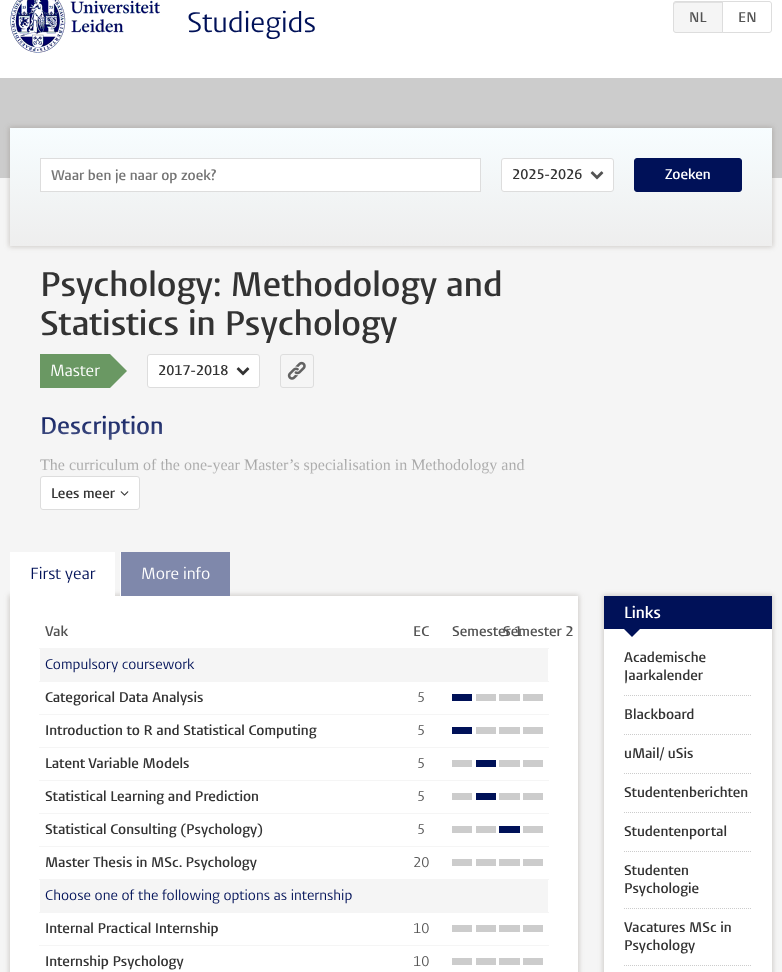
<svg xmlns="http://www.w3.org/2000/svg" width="782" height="972">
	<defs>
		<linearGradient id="g1" gradientUnits="userSpaceOnUse" x1="391" y1="246" x2="391" y2="128"><stop offset="0" stop-color="#EEEEEE" /><stop offset="1" stop-color="#F7FDFF" /></linearGradient>
		<linearGradient id="g2" gradientUnits="userSpaceOnUse" x1="294" y1="410" x2="294" y2="510"><stop offset="0" stop-color="#F5F5F5" stop-opacity="0" /><stop offset="1" stop-color="#F5F5F5" /></linearGradient>
	</defs>
	<rect width="100%" height="100%" fill="#F5F5F5" />
	<rect x="0" y="0" width="782" height="78" fill="#FFFFFF" />
	<image x="10" y="0" width="150" height="53" href="assets/img1.png" />
	<text x="187" y="32" font-family="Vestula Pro" font-size="28" fill="#001158">Studiegids</text>
	<path d="M676 1H723V33H676C674.5 33 673 31.5 673 30V4C673 2.5 674.5 1 676 1Z" fill="#F5F5F5" />
	<path d="M676 3H722V2H676C675 2 674 3 674 4V5C674 4 675 3 676 3Z" fill="#E1E1E1" />
	<path d="M676 1.5H722.5V32.5H676C674.5 32.5 673.5 31.5 673.5 30V4C673.5 2.5 674.5 1.5 676 1.5Z" fill="none" stroke="#DDDDDD" />
	<text x="689" y="22" font-family="Vestula Pro" font-size="14" font-weight="600" fill="#535353">NL</text>
	<path d="M722.5 1.5H769C770.5 1.5 771.5 2.5 771.5 4V30C771.5 31.5 770.5 32.5 769 32.5H722.5Z" fill="#FFFFFF" stroke="#DDDDDD" />
	<text x="738" y="22" font-family="Vestula Pro" font-size="14" font-weight="600" fill="#535353">EN</text>
	<rect x="0" y="78" width="782" height="100" fill="#CCCCCC" />
	<rect x="9" y="127" width="764" height="120" fill="#786E64" fill-opacity="0.3" filter="blur(2.5px)" />
	<rect x="10" y="128" width="762" height="118" fill="url(#g1)" />
	<rect x="40.5" y="158.5" width="440" height="33" fill="#FFFFFF" stroke="#DDDDDD" />
	<text x="51" y="180" font-family="Vestula Pro" font-size="14" font-weight="600" fill="#757575">Waar ben je naar op zoek?</text>
	<rect x="501.5" y="158.5" width="112" height="33" rx="2.5" fill="#FFFFFF" stroke="#DDDDDD" />
	<text x="512" y="179" font-family="Vestula Pro" font-size="14" font-weight="600" fill="#333333">2025-2026</text>
	<image x="590" y="171" width="14" height="9" href="assets/img2.png" />
	<rect x="634.5" y="158.5" width="107" height="33" rx="2.5" fill="#001158" stroke="#001158" />
	<text x="665" y="179" font-family="Vestula Pro" font-size="14" font-weight="600" fill="#FFFFFF">Zoeken</text>
	<g font-family="Vestula Pro" font-size="34" font-weight="600" fill="#333333">
		<text x="40" y="296">Psychology: Methodology and</text>
		<text x="40" y="335">Statistics in Psychology</text>
	</g>
	<rect x="40" y="354" width="70" height="34" fill="#6A9863" />
	<text x="50" y="376" font-family="Vestula Pro" font-size="16" fill="#FFFFFF">Master</text>
	<path d="M110 388V354L127 371Z" fill="#6A9863" />
	<rect x="147.5" y="354.5" width="112" height="33" rx="2.5" fill="#FFFFFF" stroke="#DDDDDD" />
	<text x="158" y="375" font-family="Vestula Pro" font-size="14" font-weight="600" fill="#333333">2017-2018</text>
	<image x="236" y="367" width="14" height="9" href="assets/img3.png" />
	<rect x="280.5" y="354.5" width="33" height="33" rx="2.5" fill="none" stroke="#DDDDDD" />
	<image x="287" y="361" width="19" height="19" href="assets/img4.png" />
	<text x="40" y="434" font-family="Vestula Pro" font-size="24" font-weight="600" fill="#001158">Description</text>
	<text x="40" y="470" font-family="Liberation Serif" font-size="16" fill="#535353">The curriculum of the one-year Master’s specialisation in Methodology and</text>
	<rect x="40" y="415" width="484" height="59" fill="url(#g2)" />
	<rect x="40.5" y="476.5" width="99" height="33" rx="2.5" fill="#FFFFFF" stroke="#DDDDDD" />
	<text x="51" y="498" font-family="Vestula Pro" font-size="14" font-weight="600" fill="#333333">Lees meer</text>
	<image x="120" y="491" width="9" height="5" href="assets/img5.png" />
	<rect x="9" y="595" width="570" height="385" fill="#786E64" fill-opacity="0.3" filter="blur(2.5px)" />
	<rect x="10" y="596" width="568" height="376" fill="#FFFFFF" />
	<rect x="10" y="552" width="105" height="44" fill="#FFFFFF" />
	<text x="30" y="579" font-family="Vestula Pro" font-size="16" fill="#001158">First year</text>
	<rect x="121" y="552" width="109" height="44" fill="#7F88AB" />
	<rect x="120" y="552" width="1" height="44" fill="#FFFFFF" />
	<text x="141" y="579" font-family="Vestula Pro" font-size="16" fill="#FFFFFF">More info</text>
	<rect x="39" y="648" width="510" height="1" fill="#F5F5F5" />
	<g font-family="Vestula Pro" font-size="14" font-weight="600" fill="#535353">
		<text x="45" y="636">Vak</text>
		<text x="413" y="636">EC</text>
		<text x="452" y="636">Semester 1</text>
		<text x="503" y="636">Semester 2</text>
	</g>
	<rect x="39" y="681" width="510" height="1" fill="#F5F5F5" />
	<rect x="40" y="649" width="508" height="32" fill="#F5F5F5" />
	<text x="45" y="669" font-family="Vestula Pro" font-size="14" fill="#001158">Compulsory coursework</text>
	<rect x="39" y="714" width="510" height="1" fill="#F5F5F5" />
	<text x="45" y="702" font-family="Vestula Pro" font-size="14" font-weight="600" fill="#333333">Categorical Data Analysis</text>
	<text x="417" y="702" font-family="Vestula Pro" font-size="14" fill="#535353">5</text>
	<rect x="452" y="694" width="20" height="7" fill="#001158" />
	<rect x="476" y="694" width="20" height="7" fill="#CCCCCC" />
	<rect x="499" y="694" width="21" height="7" fill="#CCCCCC" />
	<rect x="523" y="694" width="20" height="7" fill="#CCCCCC" />
	<rect x="39" y="747" width="510" height="1" fill="#F5F5F5" />
	<text x="45" y="735" font-family="Vestula Pro" font-size="14" font-weight="600" fill="#333333">Introduction to R and Statistical Computing</text>
	<text x="417" y="735" font-family="Vestula Pro" font-size="14" fill="#535353">5</text>
	<rect x="452" y="727" width="20" height="7" fill="#001158" />
	<rect x="476" y="727" width="20" height="7" fill="#CCCCCC" />
	<rect x="499" y="727" width="21" height="7" fill="#CCCCCC" />
	<rect x="523" y="727" width="20" height="7" fill="#CCCCCC" />
	<rect x="39" y="780" width="510" height="1" fill="#F5F5F5" />
	<text x="45" y="768" font-family="Vestula Pro" font-size="14" font-weight="600" fill="#333333">Latent Variable Models</text>
	<text x="417" y="768" font-family="Vestula Pro" font-size="14" fill="#535353">5</text>
	<rect x="452" y="760" width="20" height="7" fill="#CCCCCC" />
	<rect x="476" y="760" width="20" height="7" fill="#001158" />
	<rect x="499" y="760" width="21" height="7" fill="#CCCCCC" />
	<rect x="523" y="760" width="20" height="7" fill="#CCCCCC" />
	<rect x="39" y="813" width="510" height="1" fill="#F5F5F5" />
	<text x="45" y="801" font-family="Vestula Pro" font-size="14" font-weight="600" fill="#333333">Statistical Learning and Prediction</text>
	<text x="417" y="801" font-family="Vestula Pro" font-size="14" fill="#535353">5</text>
	<rect x="452" y="793" width="20" height="7" fill="#CCCCCC" />
	<rect x="476" y="793" width="20" height="7" fill="#001158" />
	<rect x="499" y="793" width="21" height="7" fill="#CCCCCC" />
	<rect x="523" y="793" width="20" height="7" fill="#CCCCCC" />
	<rect x="39" y="846" width="510" height="1" fill="#F5F5F5" />
	<text x="45" y="834" font-family="Vestula Pro" font-size="14" font-weight="600" fill="#333333">Statistical Consulting (Psychology)</text>
	<text x="417" y="834" font-family="Vestula Pro" font-size="14" fill="#535353">5</text>
	<rect x="452" y="826" width="20" height="7" fill="#CCCCCC" />
	<rect x="476" y="826" width="20" height="7" fill="#CCCCCC" />
	<rect x="499" y="826" width="21" height="7" fill="#001158" />
	<rect x="523" y="826" width="20" height="7" fill="#CCCCCC" />
	<rect x="39" y="879" width="510" height="1" fill="#F5F5F5" />
	<text x="45" y="867" font-family="Vestula Pro" font-size="14" font-weight="600" fill="#333333">Master Thesis in MSc. Psychology</text>
	<text x="413" y="867" font-family="Vestula Pro" font-size="14" fill="#535353">20</text>
	<rect x="452" y="859" width="20" height="7" fill="#CCCCCC" />
	<rect x="476" y="859" width="20" height="7" fill="#CCCCCC" />
	<rect x="499" y="859" width="21" height="7" fill="#CCCCCC" />
	<rect x="523" y="859" width="20" height="7" fill="#CCCCCC" />
	<rect x="39" y="912" width="510" height="1" fill="#F5F5F5" />
	<rect x="40" y="880" width="508" height="32" fill="#F5F5F5" />
	<text x="45" y="900" font-family="Vestula Pro" font-size="14" fill="#001158">Choose one of the following options as internship</text>
	<rect x="39" y="945" width="510" height="1" fill="#F5F5F5" />
	<text x="45" y="933" font-family="Vestula Pro" font-size="14" font-weight="600" fill="#333333">Internal Practical Internship</text>
	<text x="413" y="933" font-family="Vestula Pro" font-size="14" fill="#535353">10</text>
	<rect x="452" y="925" width="20" height="7" fill="#CCCCCC" />
	<rect x="476" y="925" width="20" height="7" fill="#CCCCCC" />
	<rect x="499" y="925" width="21" height="7" fill="#CCCCCC" />
	<rect x="523" y="925" width="20" height="7" fill="#CCCCCC" />
	<text x="45" y="966" font-family="Vestula Pro" font-size="14" font-weight="600" fill="#333333">Internship Psychology</text>
	<text x="413" y="966" font-family="Vestula Pro" font-size="14" fill="#535353">10</text>
	<rect x="452" y="958" width="20" height="7" fill="#CCCCCC" />
	<rect x="476" y="958" width="20" height="7" fill="#CCCCCC" />
	<rect x="499" y="958" width="21" height="7" fill="#CCCCCC" />
	<rect x="523" y="958" width="20" height="7" fill="#CCCCCC" />
	<rect x="603" y="595" width="170" height="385" fill="#786E64" fill-opacity="0.3" filter="blur(2.5px)" />
	<rect x="604" y="629" width="168" height="343" fill="#FFFFFF" />
	<rect x="604" y="596" width="168" height="33" fill="#001158" />
	<text x="624" y="618" font-family="Vestula Pro" font-size="16" font-weight="600" fill="#FFFFFF">Links</text>
	<path d="M624 629H640L632 637Z" fill="#001158" />
	<g font-family="Vestula Pro" font-size="14" font-weight="600" fill="#333333">
		<text x="624" y="662">Academische</text>
		<text x="624" y="680">Jaarkalender</text>
	</g>
	<path d="M624 695.5H752" fill="none" stroke="#CCCCCC" stroke-dasharray="1 1" />
	<text x="624" y="719" font-family="Vestula Pro" font-size="14" font-weight="600" fill="#333333">Blackboard</text>
	<path d="M624 734.5H752" fill="none" stroke="#CCCCCC" stroke-dasharray="1 1" />
	<text x="624" y="758" font-family="Vestula Pro" font-size="14" font-weight="600" fill="#333333">uMail/ uSis</text>
	<path d="M624 773.5H752" fill="none" stroke="#CCCCCC" stroke-dasharray="1 1" />
	<text x="624" y="797" font-family="Vestula Pro" font-size="14" font-weight="600" fill="#333333">Studentenberichten</text>
	<path d="M624 812.5H752" fill="none" stroke="#CCCCCC" stroke-dasharray="1 1" />
	<text x="624" y="836" font-family="Vestula Pro" font-size="14" font-weight="600" fill="#333333">Studentenportal</text>
	<path d="M624 851.5H752" fill="none" stroke="#CCCCCC" stroke-dasharray="1 1" />
	<g font-family="Vestula Pro" font-size="14" font-weight="600" fill="#333333">
		<text x="624" y="875">Studenten</text>
		<text x="624" y="893">Psychologie</text>
	</g>
	<path d="M624 908.5H752" fill="none" stroke="#CCCCCC" stroke-dasharray="1 1" />
	<g font-family="Vestula Pro" font-size="14" font-weight="600" fill="#333333">
		<text x="624" y="932">Vacatures MSc in</text>
		<text x="624" y="950">Psychology</text>
	</g>
	<path d="M624 965.5H752" fill="none" stroke="#CCCCCC" stroke-dasharray="1 1" />
</svg>
